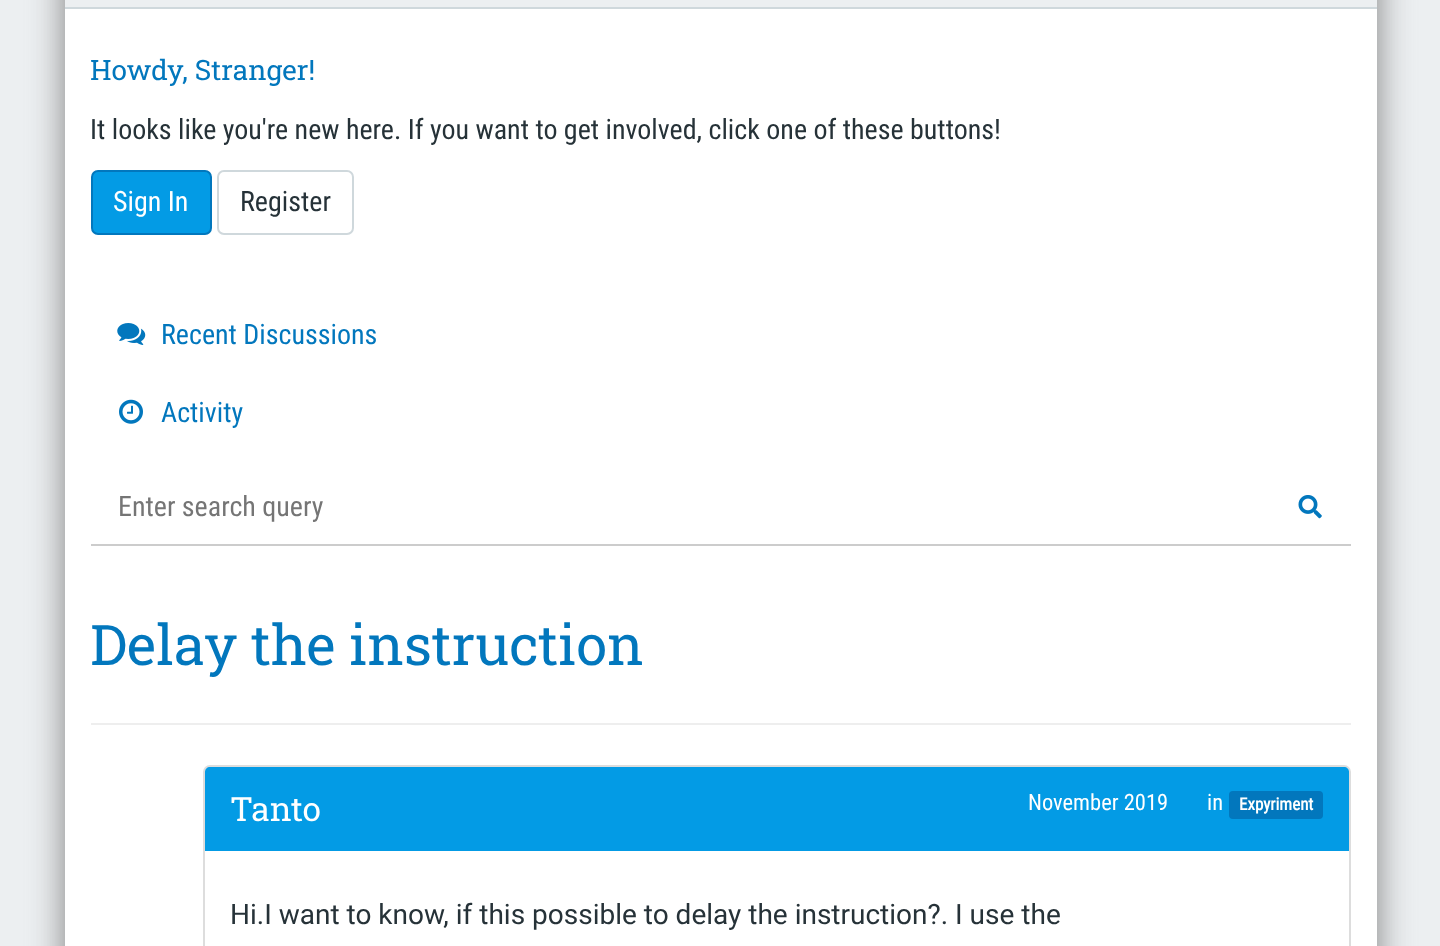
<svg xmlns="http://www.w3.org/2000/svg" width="1440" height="946">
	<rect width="100%" height="100%" fill="#ECEFF1" />
	<rect x="65" y="-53" width="1312" height="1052" fill="#808080" filter="blur(17.5px)" />
	<rect x="65" y="9" width="1312" height="937" fill="#FFFFFF" />
	<rect x="65" y="0" width="1312" height="7" fill="#ECEFF1" />
	<rect x="65" y="7" width="1312" height="2" fill="#CFD8DC" />
	<text x="90" y="80" font-family="Roboto Slab" font-size="28" fill="#0277BD">Howdy, Stranger!</text>
	<text x="90" y="139" font-family="Roboto Condensed" font-size="28" fill="#263238">It looks like you're new here. If you want to get involved, click one of these buttons!</text>
	<rect x="92" y="171" width="119" height="63" rx="6" fill="#039BE5" stroke="#0277BD" stroke-width="2" />
	<text x="113" y="211" font-family="Roboto Condensed" font-size="28" fill="#FFFFFF">Sign In</text>
	<rect x="218" y="171" width="135" height="63" rx="6" fill="none" stroke="#CFD8DC" stroke-width="2" />
	<text x="240" y="211" font-family="Roboto Condensed" font-size="28" fill="#263238">Register</text>
	<image x="117" y="323" width="29" height="22" href="assets/img1.png" />
	<text x="161" y="344" font-family="Roboto Condensed" font-size="28" fill="#0277BD">Recent Discussions</text>
	<image x="119" y="399" width="24" height="25" href="assets/img2.png" />
	<text x="161" y="422" font-family="Roboto Condensed" font-size="28" fill="#0277BD">Activity</text>
	<rect x="91" y="544" width="1260" height="2" fill="#CCCCCC" />
	<text x="118" y="516" font-family="Roboto Condensed" font-size="28" fill="#757575">Enter search query</text>
	<image x="1298" y="495" width="24" height="24" href="assets/img3.png" />
	<rect x="91" y="723" width="1260" height="2" fill="#EEEEEE" />
	<text x="90" y="665" font-family="Roboto Slab" font-size="56" fill="#0277BD">Delay the instruction</text>
	<rect x="204" y="766" width="1146" height="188" rx="6" fill="none" stroke="#DDDDDD" stroke-width="2" />
	<path d="M210 767H1344C1347 767 1349 769 1349 772V851H205V772C205 769 207 767 210 767Z" fill="#039BE5" />
	<text x="230" y="821" font-family="Roboto Slab" font-size="33.5" fill="#FFFFFF">Tanto</text>
	<g font-family="Roboto Condensed" font-size="22.5" fill="#FFFFFF">
		<text x="1028" y="810">November 2019</text>
		<text x="1207" y="810">in</text>
	</g>
	<rect x="1229" y="791" width="94" height="28" rx="4" fill="#0277BD" />
	<text x="1239" y="810" font-family="Roboto Condensed" font-size="17" font-weight="700" fill="#FFFFFF">Expyriment</text>
	<text x="230" y="924" font-family="Roboto" font-size="28" fill="#263238">Hi.I want to know, if this possible to delay the instruction?. I use the</text>
</svg>
